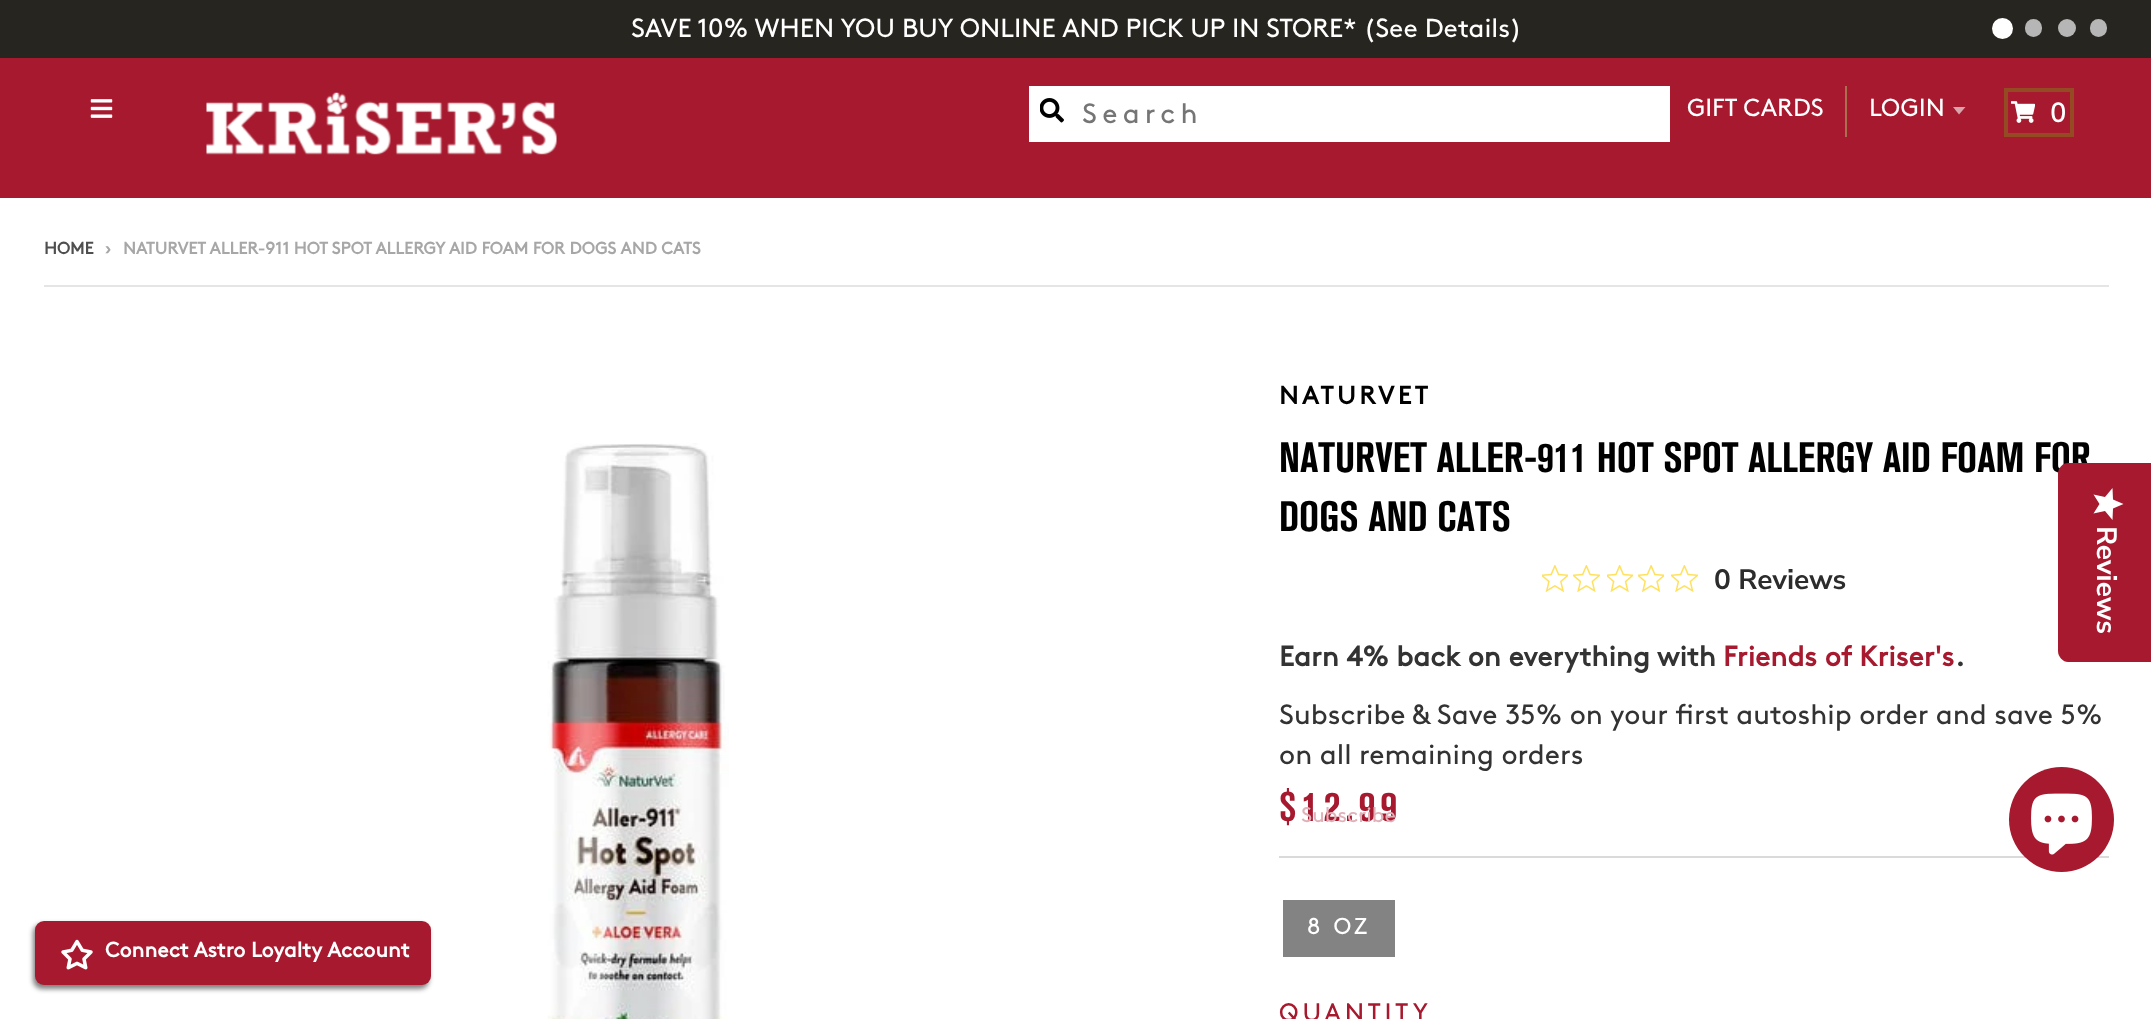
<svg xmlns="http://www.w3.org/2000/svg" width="2151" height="1019">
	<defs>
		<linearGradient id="g1" gradientUnits="userSpaceOnUse" x1="2124" y1="488" x2="2124" y2="520"><stop offset="1" stop-color="#FFFFFF" /><stop offset="1" stop-color="#EAEAEA" /></linearGradient>
	</defs>
	<rect width="100%" height="100%" fill="#FFFFFF" />
	<rect x="0" y="0" width="2151" height="58" fill="#27251F" />
	<text x="631" y="37" font-family="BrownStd" font-size="26.25" fill="#FFFFFF">SAVE 10% WHEN YOU BUY ONLINE AND PICK UP IN STORE* (See Details)</text>
	<circle cx="2002.5" cy="28.5" r="10.5" fill="#FFFFFF" />
	<rect x="2025" y="19" width="17" height="18" rx="8.5" fill="#B6B6B6" />
	<circle cx="2067" cy="28" r="9" fill="#B6B6B6" />
	<rect x="2090" y="19" width="17" height="18" rx="8.5" fill="#B6B6B6" />
	<rect x="0" y="58" width="2151" height="140" fill="#A6192E" />
	<image x="90" y="99" width="23" height="19" href="assets/img1.png" />
	<image x="206" y="92" width="351" height="63" href="assets/img2.png" />
	<rect x="1029" y="86" width="641" height="56" fill="#FFFFFF" />
	<image x="1040" y="98" width="24" height="25" href="assets/img3.png" />
	<text x="1082" y="123" font-family="BrownStd" font-size="28" letter-spacing="5.25" fill="#757575">Search</text>
	<rect x="1845" y="86" width="2" height="51" fill="#A96F4F" />
	<g font-family="BrownStd" font-size="24.75" fill="#FFFFFF">
		<text x="1687" y="116">GIFT CARDS</text>
		<text x="1869" y="116">LOGIN</text>
	</g>
	<path d="M1953 107L1959 114.5L1965.5 107Z" fill="#DBA3AB" />
	<rect x="2006" y="90" width="66" height="45" fill="none" stroke="#944B23" stroke-width="4" />
	<image x="2011" y="101" width="24" height="22" href="assets/img4.png" />
	<text x="2050" y="122" font-family="BrownStd" font-size="28" letter-spacing="3.5" fill="#FFFFFF">0</text>
	<text x="44" y="254" font-family="BrownStd" font-size="16.85" font-weight="700" fill="#4F4F4F">HOME</text>
	<g font-family="BrownStd" font-size="16.85" font-weight="700" fill="#A7A7A7">
		<text x="105" y="254">›</text>
		<text x="123" y="254">NATURVET ALLER-911 HOT SPOT ALLERGY AID FOAM FOR DOGS AND CATS</text>
	</g>
	<rect x="44" y="285" width="2065" height="2" fill="#E5E5E5" />
	<image x="547" y="443" width="182" height="576" href="assets/img5.png" />
	<text x="1279" y="404" font-family="BrownStd" font-size="25.25" font-weight="700" letter-spacing="3.5" fill="#000000">NATURVET</text>
	<g font-family="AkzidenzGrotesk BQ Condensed" font-size="42" font-weight="700" fill="#000000">
		<text x="1279" y="472">NATURVET ALLER-911 HOT SPOT ALLERGY AID FOAM FOR</text>
		<text x="1279" y="531">DOGS AND CATS</text>
	</g>
	<image x="1542" y="565" width="26" height="27" href="assets/img6.png" />
	<image x="1573" y="565" width="27" height="27" href="assets/img7.png" />
	<image x="1607" y="565" width="26" height="27" href="assets/img8.png" />
	<image x="1638" y="565" width="26" height="27" href="assets/img9.png" />
	<image x="1671" y="565" width="27" height="27" href="assets/img7.png" />
	<text x="1714" y="589" font-family="Nunito Sans" font-size="28" font-weight="200" fill="#2C2C2C">0 Reviews</text>
	<text x="1279" y="666" font-family="BrownStd" font-size="28" font-weight="700" fill="#333333">Earn 4% back on everything with</text>
	<text x="1723" y="666" font-family="BrownStd" font-size="28" font-weight="700" fill="#A6192E">Friends of Kriser's</text>
	<text x="1955" y="666" font-family="BrownStd" font-size="28" font-weight="700" fill="#333333">.</text>
	<g font-family="BrownStd" font-size="28" fill="#333333">
		<text x="1279" y="724">Subscribe &amp; Save 35% on your first autoship order and save 5%</text>
		<text x="1279" y="764">on all remaining orders</text>
	</g>
	<rect x="1279" y="856" width="830" height="2" fill="#DADADA" />
	<text x="1279" y="821" font-family="AkzidenzGrotesk BQ Condensed" font-size="42" font-weight="700" letter-spacing="5.25" fill="#A6192E">$12.99</text>
	<text x="1301" y="822" font-family="BrownStd" font-size="21" fill="#E1B1B9">Subscribe</text>
	<rect x="1283" y="900" width="112" height="57" fill="#838383" />
	<text x="1307" y="934" font-family="BrownStd" font-size="23" letter-spacing="3.5" fill="#FFFFFF">8 OZ</text>
	<text x="1279" y="1021" font-family="BrownStd" font-size="25.25" letter-spacing="3.75" fill="#A6192E">QUANTITY</text>
	<path d="M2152 463V662H2068C2063 662 2058 657 2058 651V473C2058 468 2063 463 2068 463Z" fill="#A6192E" />
	<path d="M2099.5 504L2093.5 513.5L2105 511L2112.5 520L2113 508.5L2123.5 504L2113 499.5L2112.5 488L2105 497L2093.5 494.5Z" fill="url(#g1)" />
	<text x="2097" y="526" transform="rotate(90 2097 526)" font-family="Nunito Sans" font-size="28" font-weight="200" fill="#FFFFFF">Reviews</text>
	<circle cx="2061.5" cy="819.5" r="52.5" fill="#A6192E" />
	<image x="2031" y="793" width="61" height="62" href="assets/img10.png" />
	<rect x="33" y="924" width="396" height="65" rx="9" fill="#000000" fill-opacity="0.5" filter="blur(2.5px)" />
	<rect x="35" y="921" width="396" height="64" rx="9" fill="#A6192E" />
	<image x="61" y="939" width="32" height="31" href="assets/img11.png" />
	<text x="105" y="957" font-family="BrownStd" font-size="21" font-weight="700" fill="#FFFFFF">Connect Astro Loyalty Account</text>
</svg>
